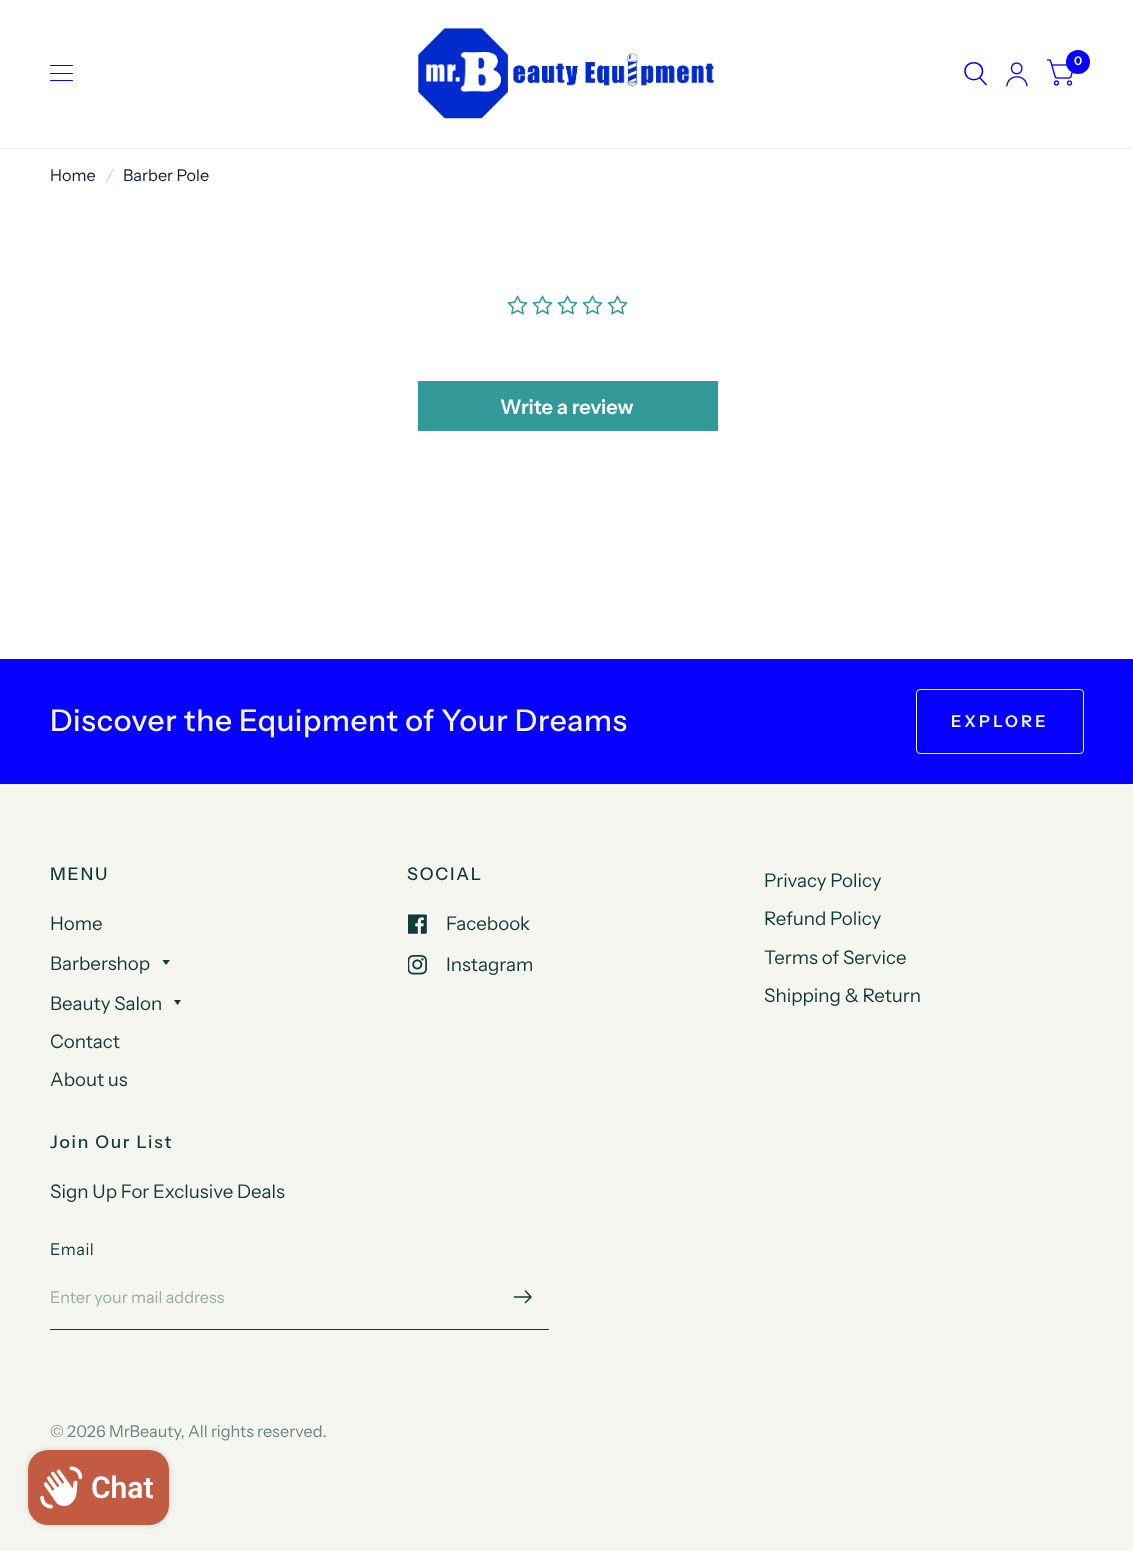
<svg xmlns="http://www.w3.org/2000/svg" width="1133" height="1551">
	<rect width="100%" height="100%" fill="#FFFFFF" />
	<rect x="0" y="148" width="1133" height="1" fill="#EEEEEE" />
	<image x="418" y="28" width="296" height="91" href="assets/img1.png" />
	<image x="1046" y="59" width="27" height="27" href="assets/img2.png" />
	<circle cx="1078" cy="62" r="12" fill="#0600FF" />
	<text x="1074" y="65" font-family="Instrument Sans" font-size="12" font-weight="600" fill="#FFFFFF">0</text>
	<path d="M980 78L986 84.5M982.5 71C982.5 82.5 965 82.5 965 71C965 60 982.5 60 982.5 71Z" fill="none" stroke="#0600FF" stroke-width="1.5" stroke-linecap="round" stroke-linejoin="round" />
	<image x="1006" y="62" width="22" height="25" href="assets/img3.png" />
	<rect x="50" y="65" width="23" height="1" rx="0.5" fill="#0600FF" />
	<rect x="50" y="73" width="23" height="1" rx="0.5" fill="#0600FF" />
	<rect x="50" y="80" width="23" height="1" rx="0.5" fill="#0600FF" />
	<text x="50" y="181" font-family="Instrument Sans" font-size="16.25" fill="#101A3A">Home</text>
	<text x="106" y="181" font-family="Instrument Sans" font-size="16.25" font-style="italic" fill="#CFD1D8">/</text>
	<text x="123" y="181" font-family="Instrument Sans" font-size="16.25" fill="#101A3A">Barber Pole</text>
	<image x="507" y="295" width="21" height="20" href="assets/img4.png" />
	<image x="532" y="295" width="21" height="20" href="assets/img4.png" />
	<image x="557" y="295" width="21" height="20" href="assets/img4.png" />
	<image x="582" y="295" width="21" height="20" href="assets/img4.png" />
	<image x="607" y="295" width="21" height="20" href="assets/img4.png" />
	<rect x="418" y="381" width="300" height="50" fill="#339999" />
	<text x="500" y="414" font-family="Instrument Sans" font-size="20" font-weight="600" fill="#FFFFFF">Write a review</text>
	<rect x="0" y="659" width="1133" height="125" fill="#0600FF" />
	<text x="50" y="731" font-family="Instrument Sans" font-size="30" font-weight="500" letter-spacing="0.6" fill="#F6F6F0">Discover the Equipment of Your Dreams</text>
	<rect x="916.5" y="689.5" width="167" height="64" rx="3.5" fill="none" stroke="#F6F6F0" />
	<text x="951" y="727" font-family="Instrument Sans" font-size="16.25" font-weight="600" letter-spacing="3.25" fill="#F6F6F0">EXPLORE</text>
	<rect x="0" y="784" width="1133" height="767" fill="#F6F6F0" />
	<text x="50" y="880" font-family="Instrument Sans" font-size="17.5" font-weight="500" letter-spacing="1.75" fill="#103A3A">MENU</text>
	<g font-family="Instrument Sans" font-size="18.75" fill="#103A3A">
		<text x="50" y="930">Home</text>
		<text x="50" y="970">Barbershop</text>
	</g>
	<path d="M162.5 960H170L166 965ZM174 1000H181L177.5 1005Z" fill="#103A3A" />
	<g font-family="Instrument Sans" font-size="18.75" fill="#103A3A">
		<text x="50" y="1010">Beauty Salon</text>
		<text x="50" y="1048">Contact</text>
		<text x="50" y="1086">About us</text>
	</g>
	<text x="407" y="880" font-family="Instrument Sans" font-size="17.5" font-weight="500" letter-spacing="1.75" fill="#103A3A">SOCIAL</text>
	<image x="408" y="914" width="19" height="20" href="assets/img5.png" />
	<text x="446" y="930" font-family="Instrument Sans" font-size="18.75" fill="#103A3A">Facebook</text>
	<image x="408" y="955" width="19" height="20" href="assets/img6.png" />
	<g font-family="Instrument Sans" font-size="18.75" fill="#103A3A">
		<text x="446" y="971">Instagram</text>
		<text x="764" y="887">Privacy Policy</text>
		<text x="764" y="925">Refund Policy</text>
		<text x="764" y="964">Terms of Service</text>
		<text x="764" y="1002">Shipping &amp; Return</text>
	</g>
	<text x="50" y="1148" font-family="Instrument Sans" font-size="17.5" font-weight="500" letter-spacing="1.75" fill="#103A3A">Join Our List</text>
	<text x="50" y="1198" font-family="Instrument Sans" font-size="18.75" fill="#103A3A">Sign Up For Exclusive Deals</text>
	<text x="50" y="1255" font-family="Instrument Sans" font-size="16.25" letter-spacing="0.5" fill="#103A3A">Email</text>
	<rect x="50" y="1329" width="499" height="1" fill="#2B2B2B" />
	<text x="50" y="1303" font-family="Instrument Sans" font-size="16.25" fill="#9AABA7">Enter your mail address</text>
	<path d="M514.5 1297H529.5M525.5 1291L531 1297L525.5 1302.5" fill="none" stroke="#103A3A" stroke-width="1.5" stroke-linecap="round" stroke-linejoin="round" />
	<text x="50" y="1437" font-family="Instrument Sans" font-size="16.25" fill="#6C8583">© 2026 MrBeauty, All rights reserved.</text>
	<rect x="28" y="1450" width="141" height="75" rx="20" fill="#000000" fill-opacity="0.15" filter="blur(3px)" />
	<rect x="28" y="1450" width="141" height="75" rx="20" fill="#C25B41" />
	<image x="40" y="1466" width="43" height="43" href="assets/img7.png" />
	<text x="91" y="1498" font-family="Roboto" font-size="30" font-weight="600" fill="#FFFFFF">Chat</text>
</svg>
